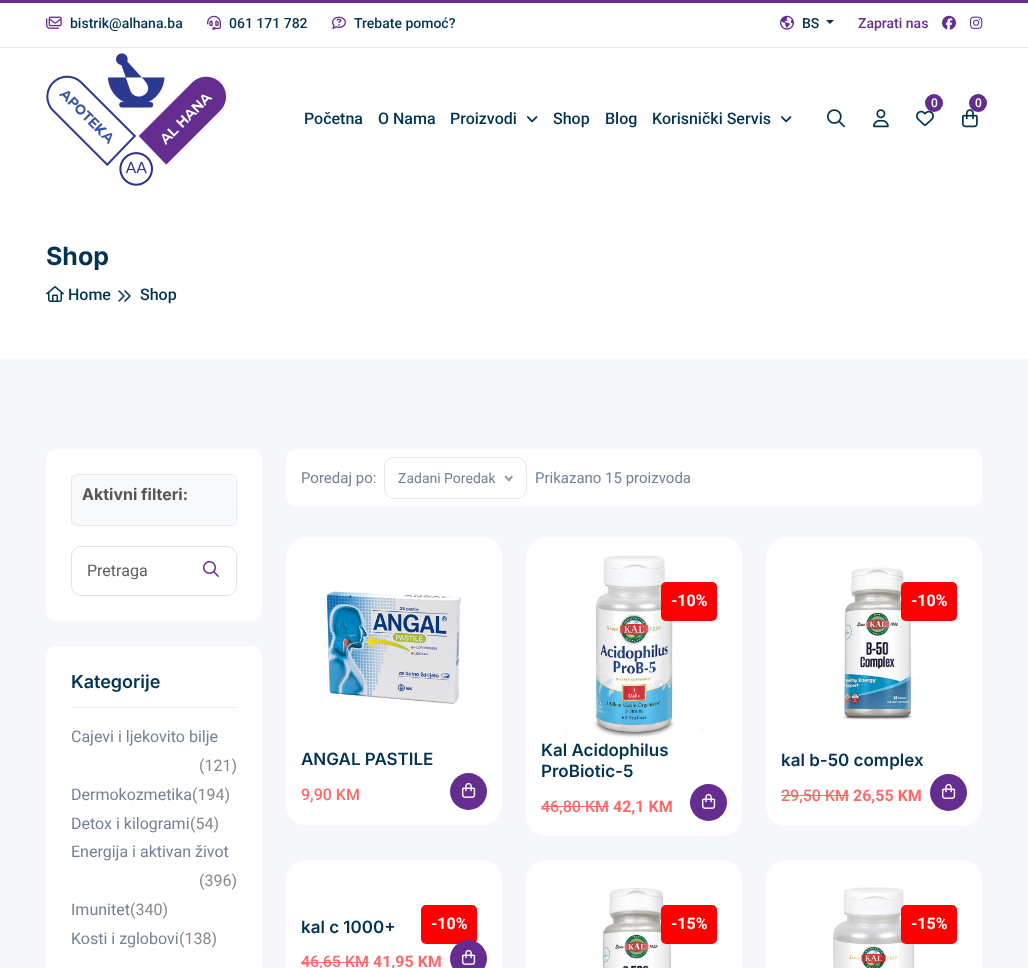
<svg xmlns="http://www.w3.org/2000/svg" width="1028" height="968">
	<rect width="100%" height="100%" fill="#FFFFFF" />
	<rect x="0" y="0" width="1028" height="3" fill="#662D91" />
	<rect x="0" y="47" width="1028" height="1" fill="#EBEBEB" />
	<image x="46" y="16" width="16" height="13" href="assets/img1.png" />
	<text x="70" y="28" font-family="Roboto" font-size="14" font-weight="500" fill="#023350">bistrik@alhana.ba</text>
	<image x="207" y="15" width="14" height="15" href="assets/img2.png" />
	<text x="229" y="28" font-family="Roboto" font-size="14" font-weight="500" fill="#023350">061 171 782</text>
	<image x="332" y="16" width="14" height="13" href="assets/img3.png" />
	<text x="354" y="28" font-family="Roboto" font-size="14" font-weight="500" fill="#023350">Trebate pomoć?</text>
	<image x="780" y="15" width="14" height="15" href="assets/img4.png" />
	<text x="802" y="28" font-family="Roboto" font-size="14" font-weight="500" fill="#023350">BS</text>
	<path d="M826 20H834L830 24Z" fill="#023350" />
	<text x="858" y="28" font-family="Roboto" font-size="14" font-weight="500" fill="#662D91">Zaprati nas</text>
	<image x="942" y="15" width="14" height="15" href="assets/img5.png" />
	<image x="970" y="16" width="13" height="13" href="assets/img6.png" />
	<image x="46" y="53" width="180" height="133" href="assets/img7.png" />
	<image x="916" y="110" width="18" height="17" href="assets/img8.png" />
	<circle cx="934" cy="103" r="9" fill="#662D91" />
	<text x="931" y="107" font-family="Roboto" font-size="12" font-weight="500" fill="#FFFFFF">0</text>
	<image x="962" y="109" width="16" height="19" href="assets/img9.png" />
	<circle cx="978" cy="103" r="9" fill="#662D91" />
	<text x="975" y="107" font-family="Roboto" font-size="12" font-weight="500" fill="#FFFFFF">0</text>
	<image x="827" y="109" width="18" height="19" href="assets/img10.png" />
	<image x="873" y="109" width="16" height="19" href="assets/img11.png" />
	<g font-family="Roboto" font-size="16" font-weight="500" fill="#023350">
		<text x="304" y="124">Početna</text>
		<text x="378" y="124">O Nama</text>
		<text x="450" y="124">Proizvodi</text>
	</g>
	<image x="527" y="116" width="11" height="7" href="assets/img12.png" />
	<g font-family="Roboto" font-size="16" font-weight="500" fill="#023350">
		<text x="553" y="124">Shop</text>
		<text x="605" y="124">Blog</text>
		<text x="652" y="124">Korisnički Servis</text>
	</g>
	<image x="781" y="116" width="11" height="7" href="assets/img12.png" />
	<text x="46" y="265" font-family="Inter" font-size="25" font-weight="700" fill="#023350">Shop</text>
	<image x="46" y="286" width="18" height="16" href="assets/img13.png" />
	<text x="68" y="300" font-family="Roboto" font-size="16" font-weight="500" fill="#023350">Home</text>
	<image x="118" y="290" width="13" height="12" href="assets/img14.png" />
	<text x="140" y="300" font-family="Roboto" font-size="16" font-weight="500" fill="#023350">Shop</text>
	<rect x="0" y="359" width="1028" height="609" fill="#F5F7FA" />
	<rect x="46" y="449" width="216" height="172" rx="10" fill="#FFFFFF" />
	<rect x="71.5" y="474.5" width="165" height="51" rx="4.5" fill="#F8F9FA" stroke="#E9ECEF" />
	<text x="82" y="500" font-family="Inter" font-size="16" font-weight="700" fill="#555555">Aktivni filteri:</text>
	<rect x="71.5" y="546.5" width="165" height="49" rx="9.5" fill="none" stroke="#DEE2E6" />
	<text x="87" y="576" font-family="Roboto" font-size="16" fill="#595C5F">Pretraga</text>
	<image x="203" y="561" width="16" height="16" href="assets/img15.png" />
	<rect x="46" y="646" width="216" height="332" rx="10" fill="#FFFFFF" />
	<rect x="71" y="707" width="166" height="1" fill="#EBEBEB" />
	<text x="71" y="688" font-family="Inter" font-size="18" font-weight="600" fill="#023350">Kategorije</text>
	<text x="71" y="742" font-family="Roboto" font-size="16" fill="#757F95">Cajevi i ljekovito bilje</text>
	<text x="199" y="771" font-family="Roboto" font-size="16" fill="#888888">(121)</text>
	<text x="71" y="800" font-family="Roboto" font-size="16" fill="#757F95">Dermokozmetika</text>
	<text x="192" y="800" font-family="Roboto" font-size="16" fill="#888888">(194)</text>
	<text x="71" y="829" font-family="Roboto" font-size="16" fill="#757F95">Detox i kilogrami</text>
	<text x="190" y="829" font-family="Roboto" font-size="16" fill="#888888">(54)</text>
	<text x="71" y="857" font-family="Roboto" font-size="16" fill="#757F95">Energija i aktivan život</text>
	<text x="199" y="886" font-family="Roboto" font-size="16" fill="#888888">(396)</text>
	<text x="71" y="915" font-family="Roboto" font-size="16" fill="#757F95">Imunitet</text>
	<text x="130" y="915" font-family="Roboto" font-size="16" fill="#888888">(340)</text>
	<text x="71" y="944" font-family="Roboto" font-size="16" fill="#757F95">Kosti i zglobovi</text>
	<text x="179" y="944" font-family="Roboto" font-size="16" fill="#888888">(138)</text>
	<rect x="286" y="449" width="696" height="58" rx="10" fill="#FFFFFF" />
	<text x="301" y="483" font-family="Roboto" font-size="15" fill="#757F95">Poredaj po:</text>
	<rect x="384.5" y="457.5" width="142" height="41" rx="9.5" fill="none" stroke="#E8E8E8" />
	<text x="398" y="483" font-family="Roboto" font-size="14" fill="#757F95">Zadani Poredak</text>
	<path d="M511.5 475.5L513 477L509 481.5L507.5 480Z" fill="#999999" />
	<path d="M506 475.5L510 480L509 481.5L504.5 477Z" fill="#999999" />
	<text x="535" y="483" font-family="Roboto" font-size="15" fill="#757F95">Prikazano 15 proizvoda</text>
	<rect x="286" y="537" width="216" height="288" rx="20" fill="#FFFFFF" />
	<image x="325" y="591" width="136" height="113" href="assets/img16.png" />
	<text x="301" y="765" font-family="Inter" font-size="17" font-weight="600" fill="#023350">ANGAL PASTILE</text>
	<text x="301" y="800" font-family="Roboto" font-size="16" font-weight="500" fill="#FD6A6A">9,90 KM</text>
	<circle cx="468.5" cy="791.5" r="18.5" fill="#662D91" />
	<image x="462" y="782" width="14" height="16" href="assets/img17.png" />
	<rect x="526" y="537" width="216" height="299" rx="20" fill="#FFFFFF" />
	<image x="564" y="555" width="140" height="183" href="assets/img18.png" />
	<rect x="661" y="582" width="56" height="39" rx="5" fill="#FF0000" />
	<text x="671" y="606" font-family="Roboto" font-size="16" font-weight="700" fill="#FFFFFF">-10%</text>
	<g font-family="Inter" font-size="17" font-weight="600" fill="#023350">
		<text x="541" y="756">Kal Acidophilus</text>
		<text x="541" y="777">ProBiotic-5</text>
	</g>
	<text x="541" y="812" font-family="Roboto" font-size="16" font-weight="500" fill="#FD6A6A">46,80 KM</text>
	<rect x="541" y="806" width="68" height="1" fill="#FD6A6A" />
	<text x="613" y="812" font-family="Roboto" font-size="16" font-weight="700" fill="#FD6A6A">42,1 KM</text>
	<circle cx="708.5" cy="802.5" r="18.5" fill="#662D91" />
	<image x="702" y="793" width="14" height="16" href="assets/img17.png" />
	<rect x="766" y="537" width="216" height="289" rx="20" fill="#FFFFFF" />
	<image x="842" y="567" width="72" height="153" href="assets/img19.png" />
	<rect x="901" y="582" width="56" height="39" rx="5" fill="#FF0000" />
	<text x="911" y="606" font-family="Roboto" font-size="16" font-weight="700" fill="#FFFFFF">-10%</text>
	<text x="781" y="766" font-family="Inter" font-size="17" font-weight="600" fill="#023350">kal b-50 complex</text>
	<text x="781" y="801" font-family="Roboto" font-size="16" font-weight="500" fill="#FD6A6A">29,50 KM</text>
	<rect x="781" y="795" width="68" height="1" fill="#FD6A6A" />
	<text x="853" y="801" font-family="Roboto" font-size="16" font-weight="700" fill="#FD6A6A">26,55 KM</text>
	<circle cx="948.5" cy="792.5" r="18.5" fill="#662D91" />
	<image x="942" y="783" width="14" height="16" href="assets/img17.png" />
	<rect x="286" y="860" width="216" height="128" rx="20" fill="#FFFFFF" />
	<text x="301" y="933" font-family="Inter" font-size="17" font-weight="600" fill="#023350">kal c 1000+</text>
	<text x="301" y="967" font-family="Roboto" font-size="16" font-weight="500" fill="#FD6A6A">46,65 KM</text>
	<rect x="301" y="962" width="68" height="1" fill="#FD6A6A" />
	<text x="373" y="967" font-family="Roboto" font-size="16" font-weight="700" fill="#FD6A6A">41,95 KM</text>
	<rect x="421" y="905" width="56" height="39" rx="5" fill="#FF0000" />
	<circle cx="468.5" cy="958.5" r="18.5" fill="#662D91" />
	<image x="462" y="949" width="14" height="16" href="assets/img17.png" />
	<text x="431" y="929" font-family="Roboto" font-size="16" font-weight="700" fill="#FFFFFF">-10%</text>
	<rect x="526" y="860" width="216" height="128" rx="20" fill="#FFFFFF" />
	<image x="602" y="888" width="69" height="80" href="assets/img20.png" />
	<rect x="661" y="905" width="56" height="39" rx="5" fill="#FF0000" />
	<text x="671" y="929" font-family="Roboto" font-size="16" font-weight="700" fill="#FFFFFF">-15%</text>
	<rect x="766" y="860" width="216" height="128" rx="20" fill="#FFFFFF" />
	<image x="833" y="887" width="82" height="81" href="assets/img21.png" />
	<rect x="901" y="905" width="56" height="39" rx="5" fill="#FF0000" />
	<text x="911" y="929" font-family="Roboto" font-size="16" font-weight="700" fill="#FFFFFF">-15%</text>
</svg>
